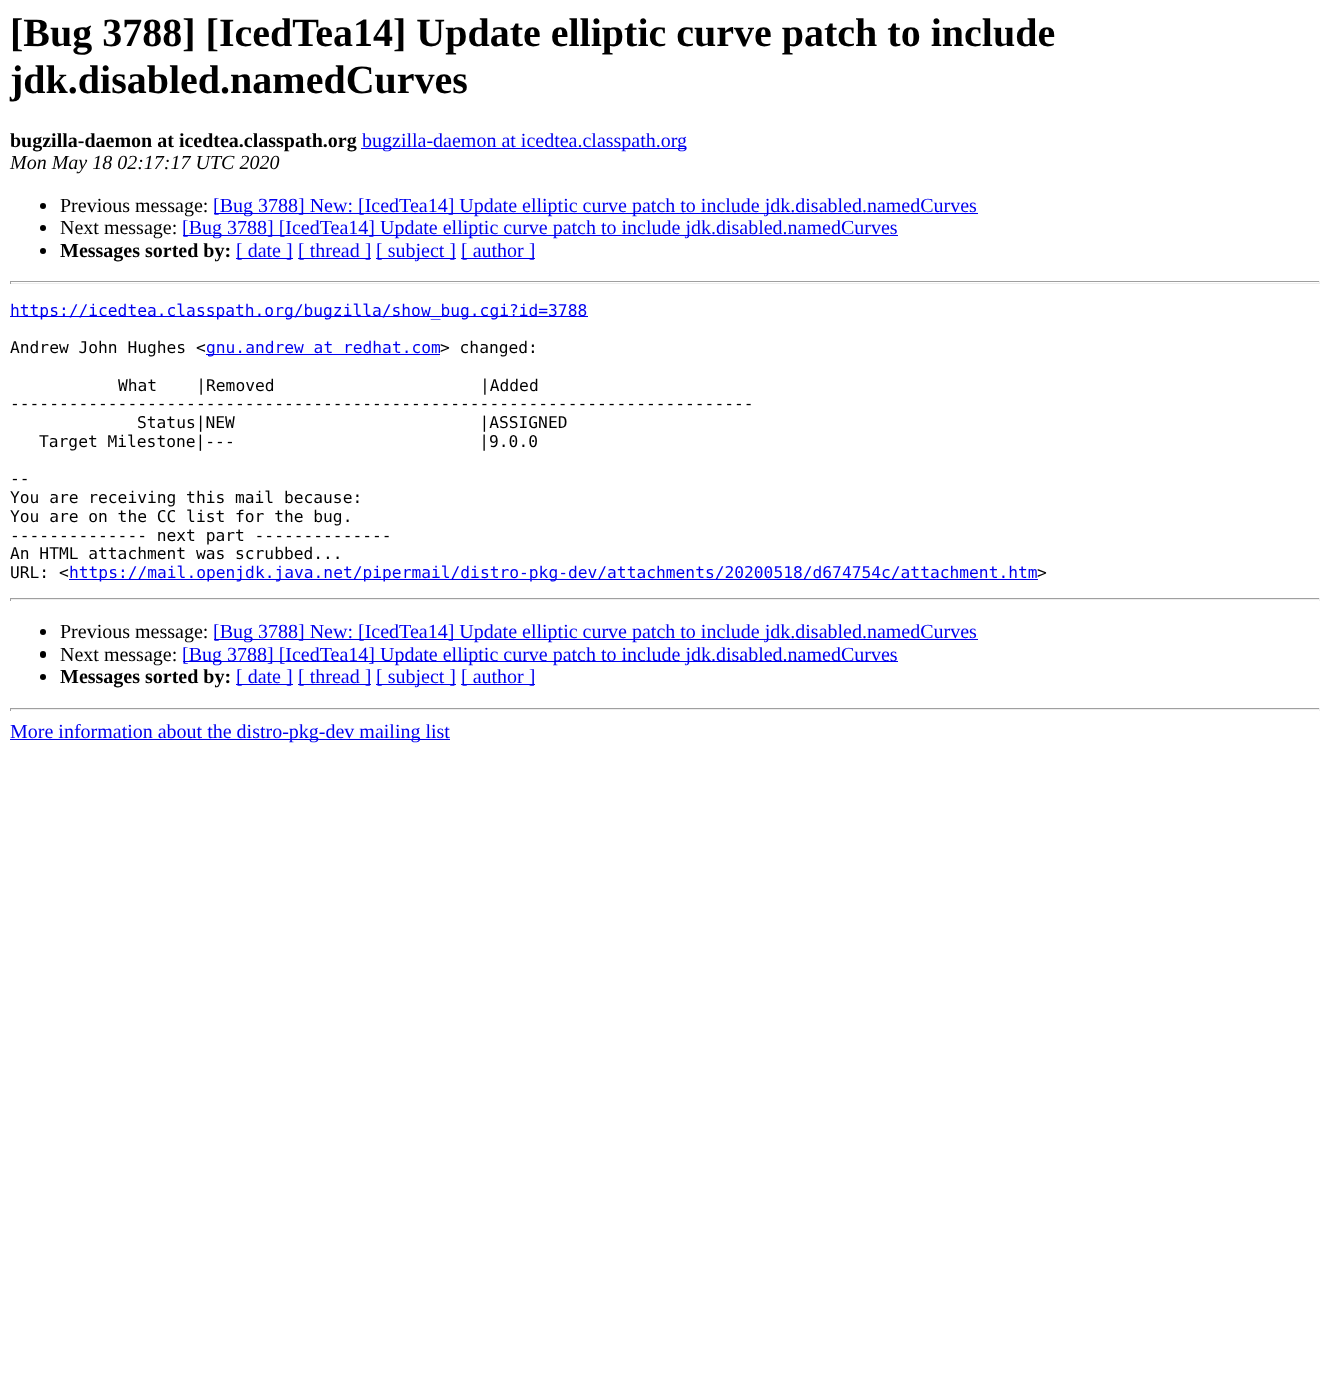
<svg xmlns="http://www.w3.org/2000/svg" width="1330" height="1396">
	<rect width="100%" height="100%" fill="#FFFFFF" />
	<g font-family="Liberation Serif" font-size="40" font-weight="700" fill="#000000">
		<text x="10" y="46">[Bug 3788] [IcedTea14] Update elliptic curve patch to include</text>
		<text x="10" y="93">jdk.disabled.namedCurves</text>
	</g>
	<text x="10" y="147" font-family="Liberation Serif" font-size="20" font-weight="700" fill="#000000">bugzilla-daemon at icedtea.classpath.org</text>
	<rect x="361" y="148" width="325" height="1" fill="#0000EE" />
	<text x="362" y="147" font-family="Liberation Serif" font-size="20" fill="#0000EE">bugzilla-daemon at icedtea.classpath.org</text>
	<text x="10" y="169" font-family="Liberation Serif" font-size="20" font-style="italic" fill="#000000">Mon May 18 02:17:17 UTC 2020</text>
	<circle cx="43" cy="206" r="3" fill="#000000" />
	<text x="60" y="212" font-family="Liberation Serif" font-size="20" fill="#000000">Previous message:</text>
	<rect x="214" y="213" width="764" height="1" fill="#0000EE" />
	<text x="213" y="212" font-family="Liberation Serif" font-size="20" fill="#0000EE">[Bug 3788] New: [IcedTea14] Update elliptic curve patch to include jdk.disabled.namedCurves</text>
	<circle cx="43" cy="228" r="3" fill="#000000" />
	<text x="60" y="234" font-family="Liberation Serif" font-size="20" fill="#000000">Next message:</text>
	<rect x="183" y="235" width="715" height="1" fill="#0000EE" />
	<text x="182" y="234" font-family="Liberation Serif" font-size="20" fill="#0000EE">[Bug 3788] [IcedTea14] Update elliptic curve patch to include jdk.disabled.namedCurves</text>
	<circle cx="43" cy="251" r="3" fill="#000000" />
	<text x="60" y="257" font-family="Liberation Serif" font-size="20" font-weight="700" fill="#000000">Messages sorted by:</text>
	<rect x="236" y="258" width="57" height="1" fill="#0000EE" />
	<text x="236" y="257" font-family="Liberation Serif" font-size="20" fill="#0000EE">[ date ]</text>
	<rect x="298" y="258" width="73" height="1" fill="#0000EE" />
	<text x="298" y="257" font-family="Liberation Serif" font-size="20" fill="#0000EE">[ thread ]</text>
	<rect x="376" y="258" width="80" height="1" fill="#0000EE" />
	<text x="376" y="257" font-family="Liberation Serif" font-size="20" fill="#0000EE">[ subject ]</text>
	<rect x="461" y="258" width="74" height="1" fill="#0000EE" />
	<text x="461" y="257" font-family="Liberation Serif" font-size="20" fill="#0000EE">[ author ]</text>
	<rect x="10" y="281" width="1310" height="1" fill="#9F9F9F" />
	<rect x="1319" y="281" width="1" height="3" fill="#EEEEEE" />
	<rect x="10" y="283" width="1310" height="1" fill="#EEEEEE" />
	<rect x="10" y="281" width="1" height="3" fill="#9F9F9F" />
	<rect x="10" y="316" width="578" height="1" fill="#0000EE" />
	<text x="10" y="316" font-family="DejaVu Sans Mono" font-size="16.25" fill="#0000EE">https://icedtea.classpath.org/bugzilla/show_bug.cgi?id=3788</text>
	<text x="10" y="353" font-family="DejaVu Sans Mono" font-size="16.25" fill="#000000">Andrew John Hughes &lt;</text>
	<rect x="206" y="354" width="234" height="1" fill="#0000EE" />
	<text x="206" y="353" font-family="DejaVu Sans Mono" font-size="16.25" fill="#0000EE">gnu.andrew at redhat.com</text>
	<g font-family="DejaVu Sans Mono" font-size="16.25" fill="#000000">
		<text x="440" y="353">&gt; changed:</text>
		<text x="118" y="391" xml:space="preserve">What    |Removed                     |Added</text>
		<text x="10" y="409">----------------------------------------------------------------------------</text>
		<text x="137" y="428" xml:space="preserve">Status|NEW                         |ASSIGNED</text>
		<text x="39" y="447" xml:space="preserve">Target Milestone|---                         |9.0.0</text>
		<text x="10" y="484">--</text>
		<text x="10" y="503">You are receiving this mail because:</text>
		<text x="10" y="522">You are on the CC list for the bug.</text>
		<text x="10" y="541">-------------- next part --------------</text>
		<text x="10" y="559">An HTML attachment was scrubbed...</text>
		<text x="10" y="578">URL: &lt;</text>
	</g>
	<rect x="69" y="579" width="969" height="1" fill="#0000EE" />
	<text x="69" y="578" font-family="DejaVu Sans Mono" font-size="16.25" fill="#0000EE">https://mail.openjdk.java.net/pipermail/distro-pkg-dev/attachments/20200518/d674754c/attachment.htm</text>
	<text x="1037" y="578" font-family="DejaVu Sans Mono" font-size="16.25" fill="#000000">&gt;</text>
	<rect x="10" y="598" width="1310" height="1" fill="#9F9F9F" />
	<rect x="1319" y="598" width="1" height="3" fill="#EEEEEE" />
	<rect x="10" y="599" width="1310" height="1" fill="#EEEEEE" />
	<rect x="10" y="598" width="1" height="3" fill="#9F9F9F" />
	<circle cx="43" cy="632" r="3" fill="#000000" />
	<text x="60" y="638" font-family="Liberation Serif" font-size="20" fill="#000000">Previous message:</text>
	<rect x="214" y="639" width="764" height="1" fill="#0000EE" />
	<text x="213" y="638" font-family="Liberation Serif" font-size="20" fill="#0000EE">[Bug 3788] New: [IcedTea14] Update elliptic curve patch to include jdk.disabled.namedCurves</text>
	<rect x="40" y="651" width="6" height="7" rx="3" fill="#000000" />
	<text x="60" y="661" font-family="Liberation Serif" font-size="20" fill="#000000">Next message:</text>
	<rect x="183" y="661" width="715" height="1" fill="#0000EE" />
	<text x="182" y="661" font-family="Liberation Serif" font-size="20" fill="#0000EE">[Bug 3788] [IcedTea14] Update elliptic curve patch to include jdk.disabled.namedCurves</text>
	<circle cx="43" cy="677" r="3" fill="#000000" />
	<text x="60" y="683" font-family="Liberation Serif" font-size="20" font-weight="700" fill="#000000">Messages sorted by:</text>
	<rect x="236" y="684" width="57" height="1" fill="#0000EE" />
	<text x="236" y="683" font-family="Liberation Serif" font-size="20" fill="#0000EE">[ date ]</text>
	<rect x="298" y="684" width="73" height="1" fill="#0000EE" />
	<text x="298" y="683" font-family="Liberation Serif" font-size="20" fill="#0000EE">[ thread ]</text>
	<rect x="376" y="684" width="80" height="1" fill="#0000EE" />
	<text x="376" y="683" font-family="Liberation Serif" font-size="20" fill="#0000EE">[ subject ]</text>
	<rect x="461" y="684" width="74" height="1" fill="#0000EE" />
	<text x="461" y="683" font-family="Liberation Serif" font-size="20" fill="#0000EE">[ author ]</text>
	<rect x="10" y="708" width="1310" height="1" fill="#9F9F9F" />
	<rect x="1319" y="708" width="1" height="3" fill="#EEEEEE" />
	<rect x="10" y="709" width="1310" height="1" fill="#EEEEEE" />
	<rect x="10" y="708" width="1" height="3" fill="#9F9F9F" />
	<rect x="10" y="739" width="440" height="1" fill="#0000EE" />
	<text x="10" y="738" font-family="Liberation Serif" font-size="20" fill="#0000EE">More information about the distro-pkg-dev mailing list</text>
</svg>
